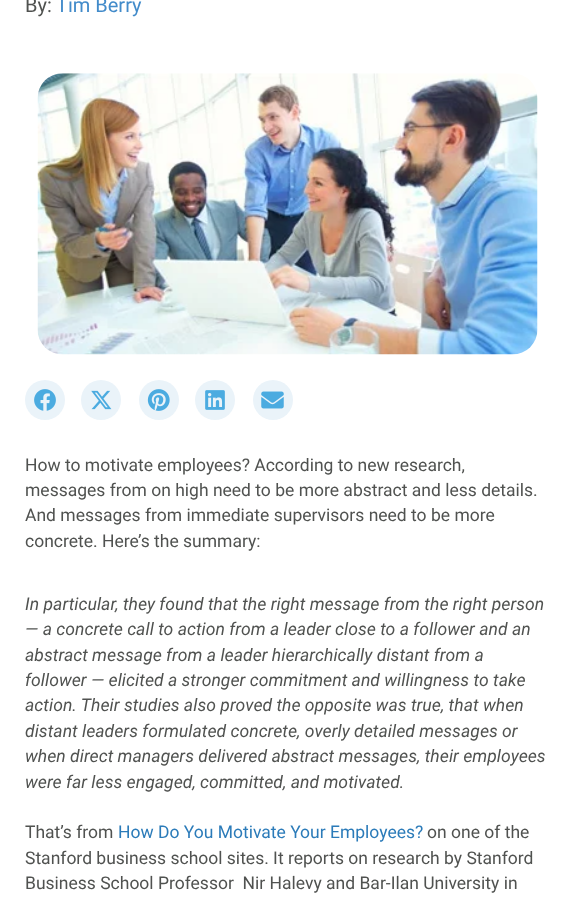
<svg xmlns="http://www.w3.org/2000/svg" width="573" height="899">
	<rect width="100%" height="100%" fill="#FFFFFF" />
	<text x="25" y="12" font-family="Roboto" font-size="20" fill="#505250">By:</text>
	<text x="56" y="12" font-family="Roboto" font-size="20" fill="#428BCA">Tim Berry</text>
	<image x="37" y="73" width="501" height="282" href="assets/img1.png" />
	<circle cx="45" cy="400" r="20" fill="#EAF3F9" />
	<image x="34" y="389" width="22" height="22" href="assets/img2.png" />
	<circle cx="101" cy="400" r="20" fill="#EAF3F9" />
	<image x="91" y="390" width="21" height="20" href="assets/img3.png" />
	<circle cx="159" cy="400" r="20" fill="#EAF3F9" />
	<image x="147" y="389" width="23" height="22" href="assets/img4.png" />
	<circle cx="215" cy="400" r="20" fill="#EAF3F9" />
	<image x="205" y="390" width="20" height="20" href="assets/img5.png" />
	<circle cx="273" cy="400" r="20" fill="#EAF3F9" />
	<image x="261" y="391" width="23" height="18" href="assets/img6.png" />
	<g font-family="Roboto" font-size="17.5" fill="#505250">
		<text x="25" y="471">How to motivate employees? According to new research,</text>
		<text x="25" y="496">messages from on high need to be more abstract and less details.</text>
		<text x="25" y="521">And messages from immediate supervisors need to be more</text>
		<text x="25" y="547">concrete. Here’s the summary:</text>
	</g>
	<g font-family="Roboto" font-size="17.5" font-style="italic" fill="#505250">
		<text x="25" y="610">In particular, they found that the right message from the right person</text>
		<text x="25" y="635">— a concrete call to action from a leader close to a follower and an</text>
		<text x="25" y="661">abstract message from a leader hierarchically distant from a</text>
		<text x="25" y="686">follower — elicited a stronger commitment and willingness to take</text>
		<text x="25" y="711">action. Their studies also proved the opposite was true, that when</text>
		<text x="25" y="737">distant leaders formulated concrete, overly detailed messages or</text>
		<text x="25" y="762">when direct managers delivered abstract messages, their employees</text>
		<text x="25" y="788">were far less engaged, committed, and motivated.</text>
	</g>
	<text x="25" y="838" font-family="Roboto" font-size="17.5" fill="#505250">That’s from</text>
	<text x="118" y="838" font-family="Roboto" font-size="17.5" fill="#2B7BB9">How Do You Motivate Your Employees?</text>
	<g font-family="Roboto" font-size="17.5" fill="#505250">
		<text x="427" y="838">on one of the</text>
		<text x="25" y="864">Stanford business school sites. It reports on research by Stanford</text>
		<text x="25" y="889" xml:space="preserve">Business School Professor  Nir Halevy and Bar-Ilan University in</text>
	</g>
</svg>
